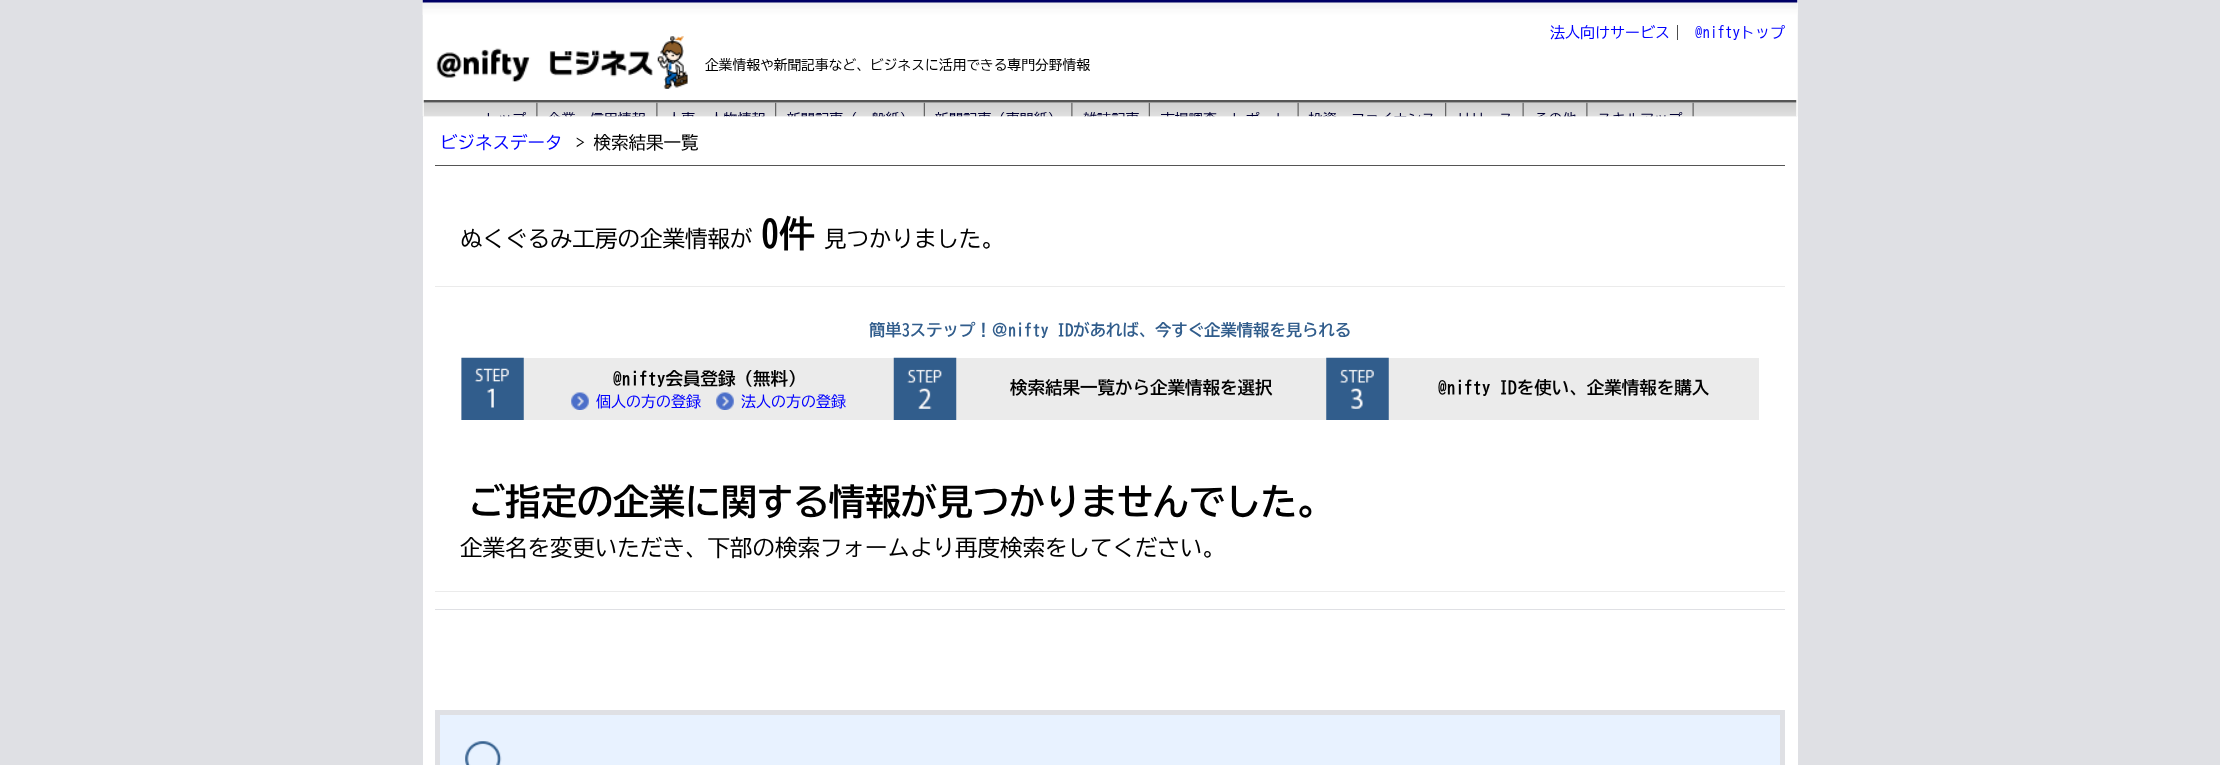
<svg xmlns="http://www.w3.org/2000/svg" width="2220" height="765">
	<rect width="100%" height="100%" fill="#DFE0E4" />
	<rect x="423" y="0" width="1375" height="765" fill="#FFFFFF" />
	<image x="422" y="0" width="1376" height="117" href="assets/img1.png" />
	<rect x="435" y="165" width="1350" height="1" fill="#555555" />
	<text x="440" y="149" font-family="BIZ UDGothic" font-size="17.5" fill="#0000FF">ビジネスデータ</text>
	<text x="576" y="149" font-family="BIZ UDGothic" font-size="17.5" fill="#000000">&gt; 検索結果一覧</text>
	<rect x="435" y="286" width="1350" height="1" fill="#EBEBEB" />
	<text x="460" y="247" font-family="BIZ UDGothic" font-size="22.5" fill="#000000">ぬくぐるみ工房の企業情報が</text>
	<text x="761" y="247" font-family="BIZ UDGothic" font-size="36" font-weight="700" fill="#000000">0件</text>
	<text x="824" y="247" font-family="BIZ UDGothic" font-size="22.5" fill="#000000">見つかりました。</text>
	<text x="869" y="336" font-family="BIZ UDGothic" font-size="16.35" font-weight="700" fill="#315D8C">簡単3ステップ！＠nifty IDがあれば、今すぐ企業情報を見られる</text>
	<rect x="461" y="358" width="433" height="62" fill="#EBEBEB" />
	<image x="461" y="357" width="63" height="63" href="assets/img2.png" />
	<text x="613" y="385" font-family="BIZ UDGothic" font-size="17.5" font-weight="700" fill="#000000">@nifty会員登録（無料）</text>
	<image x="571" y="392" width="18" height="18" href="assets/img3.png" />
	<text x="596" y="407" font-family="BIZ UDGothic" font-size="15" fill="#0000FF">個人の方の登録</text>
	<image x="716" y="392" width="18" height="18" href="assets/img3.png" />
	<text x="741" y="407" font-family="BIZ UDGothic" font-size="15" fill="#0000FF">法人の方の登録</text>
	<rect x="956" y="358" width="803" height="62" fill="#EBEBEB" />
	<image x="893" y="357" width="64" height="63" href="assets/img4.png" />
	<text x="1010" y="394" font-family="BIZ UDGothic" font-size="17.5" font-weight="700" fill="#000000">検索結果一覧から企業情報を選択</text>
	<image x="1326" y="357" width="63" height="63" href="assets/img5.png" />
	<text x="1438" y="394" font-family="BIZ UDGothic" font-size="17.5" font-weight="700" fill="#000000">@nifty IDを使い、企業情報を購入</text>
	<rect x="435" y="591" width="1350" height="1" fill="#EBEBEB" />
	<text x="469" y="515" font-family="BIZ UDGothic" font-size="36" font-weight="700" fill="#000000">ご指定の企業に関する情報が見つかりませんでした。</text>
	<text x="460" y="556" font-family="BIZ UDGothic" font-size="22.5" fill="#000000">企業名を変更いただき、下部の検索フォームより再度検索をしてください。</text>
	<rect x="435" y="609" width="1350" height="1" fill="#DFE0E4" />
	<rect x="437.5" y="712.5" width="1345" height="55" fill="none" stroke="#DFE0E4" stroke-width="5" />
	<rect x="440" y="715" width="1340" height="50" fill="#E8F2FF" />
	<image x="465" y="741" width="37" height="24" href="assets/img6.png" />
</svg>
